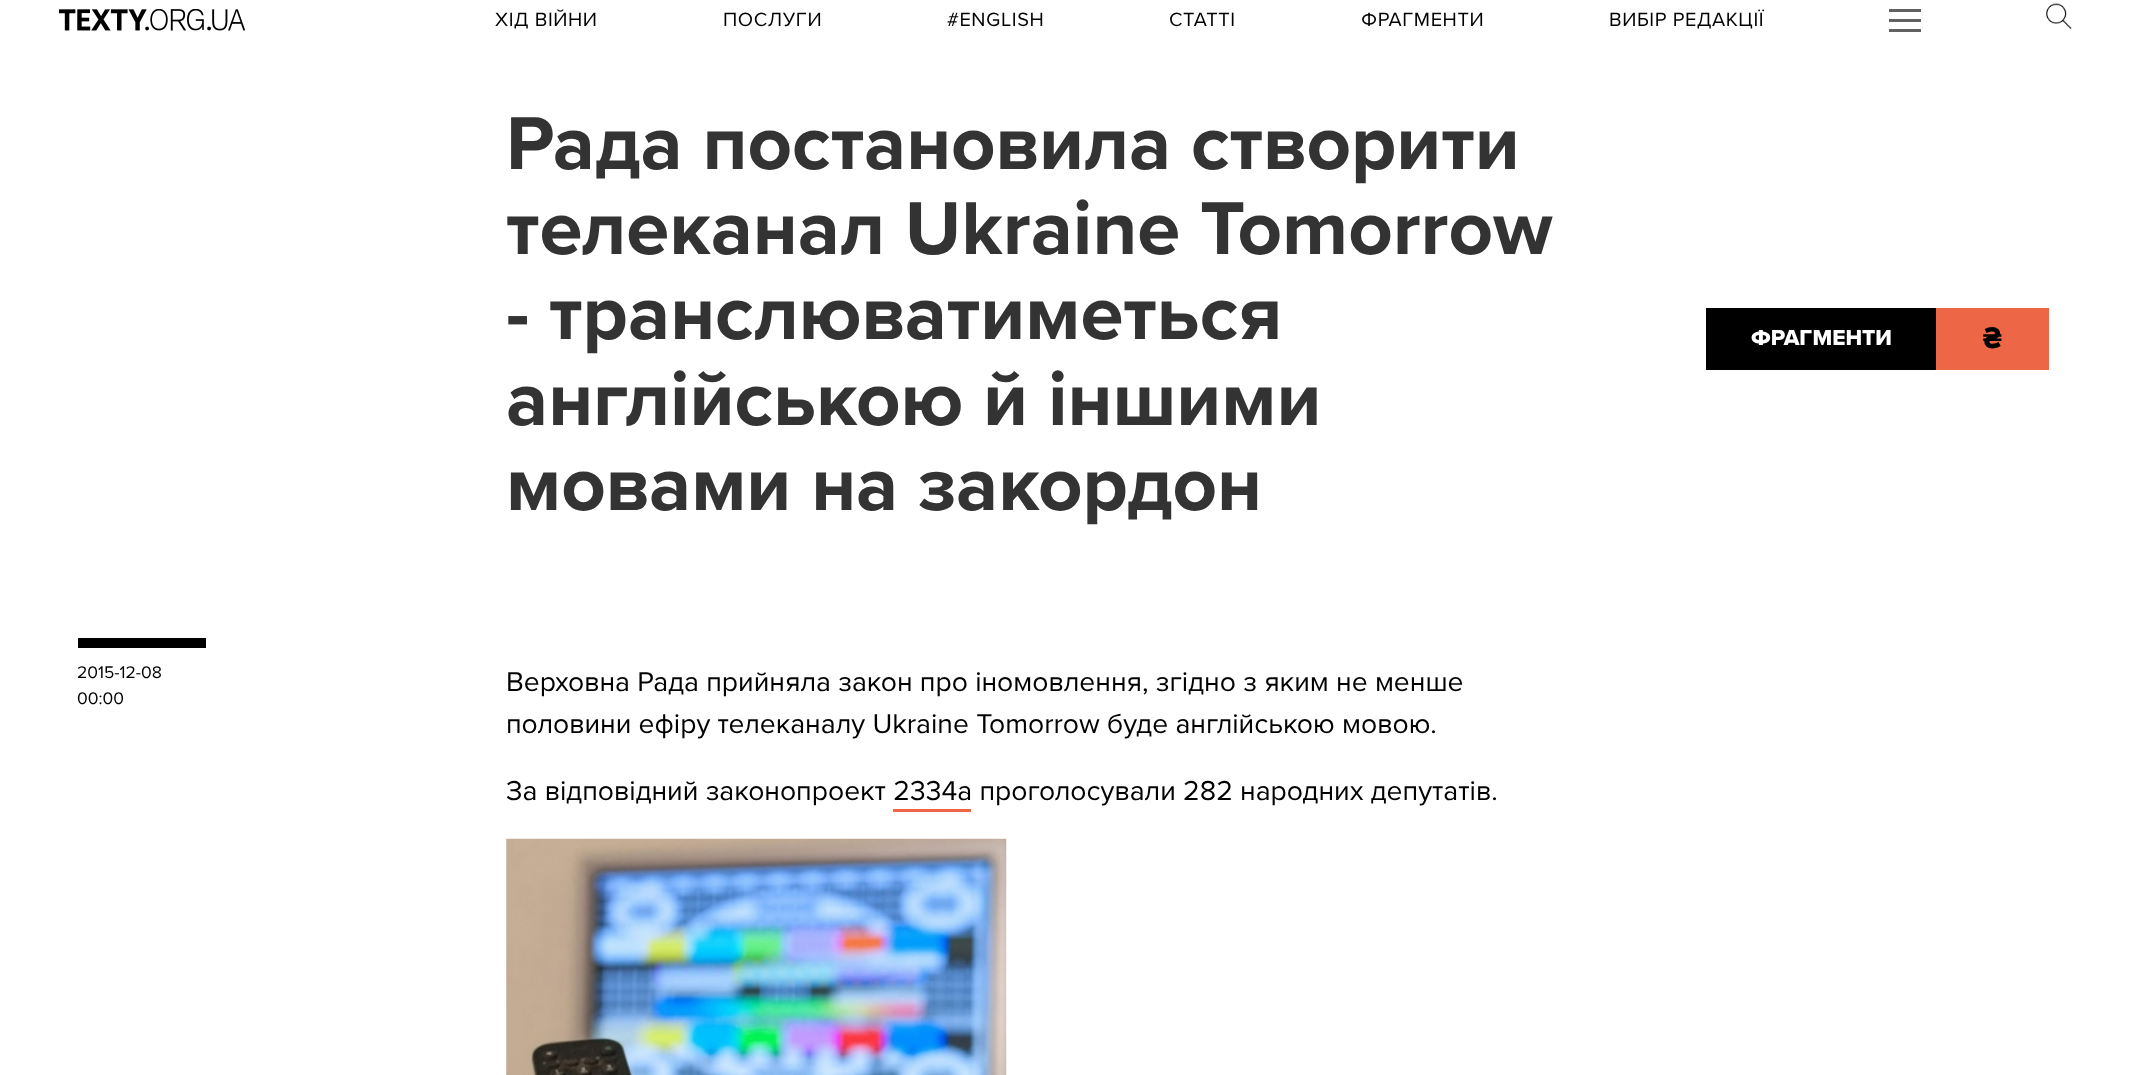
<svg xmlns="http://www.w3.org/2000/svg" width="2155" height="1075">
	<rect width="100%" height="100%" fill="#FFFFFF" />
	<image x="59" y="9" width="186" height="22" href="assets/img1.png" />
	<g font-family="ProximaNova" font-size="20" letter-spacing="0.6" fill="#000000">
		<text x="495" y="26">ХІД ВІЙНИ</text>
		<text x="723" y="26">ПОСЛУГИ</text>
		<text x="947" y="26">#ENGLISH</text>
		<text x="1169" y="26">СТАТТІ</text>
		<text x="1361" y="26">ФРАГМЕНТИ</text>
		<text x="1609" y="26">ВИБІР РЕДАКЦІЇ</text>
	</g>
	<rect x="1889" y="19" width="32" height="3" fill="#616161" />
	<rect x="1889" y="9" width="32" height="3" fill="#616161" />
	<rect x="1889" y="29" width="32" height="3" fill="#616161" />
	<image x="2046" y="3" width="26" height="26" href="assets/img2.png" />
	<g font-family="ProximaNova" font-size="77.6" font-weight="700" fill="#333333">
		<text x="506" y="169">Рада постановила створити</text>
		<text x="506" y="254">телеканал Ukraine Tomorrow</text>
		<text x="506" y="339">- транслюватиметься</text>
		<text x="506" y="425">англійською й іншими</text>
		<text x="506" y="510">мовами на закордон</text>
	</g>
	<rect x="1706" y="308" width="230" height="62" fill="#000000" />
	<text x="1751" y="345" font-family="Proxima Nova" font-size="22.5" font-weight="800" fill="#FFFFFF">ФРАГМЕНТИ</text>
	<rect x="1936" y="308" width="113" height="62" fill="#ED6746" />
	<text x="1983" y="348" font-family="Proxima Nova" font-size="31" font-weight="800" fill="#000000">₴</text>
	<rect x="78" y="638" width="128" height="10" fill="#000000" />
	<g font-family="ProximaNova" font-size="17.5" fill="#000000">
		<text x="77" y="678">2015-12-08</text>
		<text x="77" y="704">00:00</text>
	</g>
	<g font-family="ProximaNova" font-size="28.3" fill="#000000">
		<text x="506" y="691">Верховна Рада прийняла закон про іномовлення, згідно з яким не менше</text>
		<text x="506" y="733">половини ефіру телеканалу Ukraine Tomorrow буде англійською мовою.</text>
		<text x="506" y="800">За відповідний законопроект 2334а проголосували 282 народних депутатів.</text>
	</g>
	<rect x="893" y="809" width="78" height="3" fill="#ED6746" />
	<image x="506" y="838" width="501" height="237" href="assets/img3.png" />
</svg>
